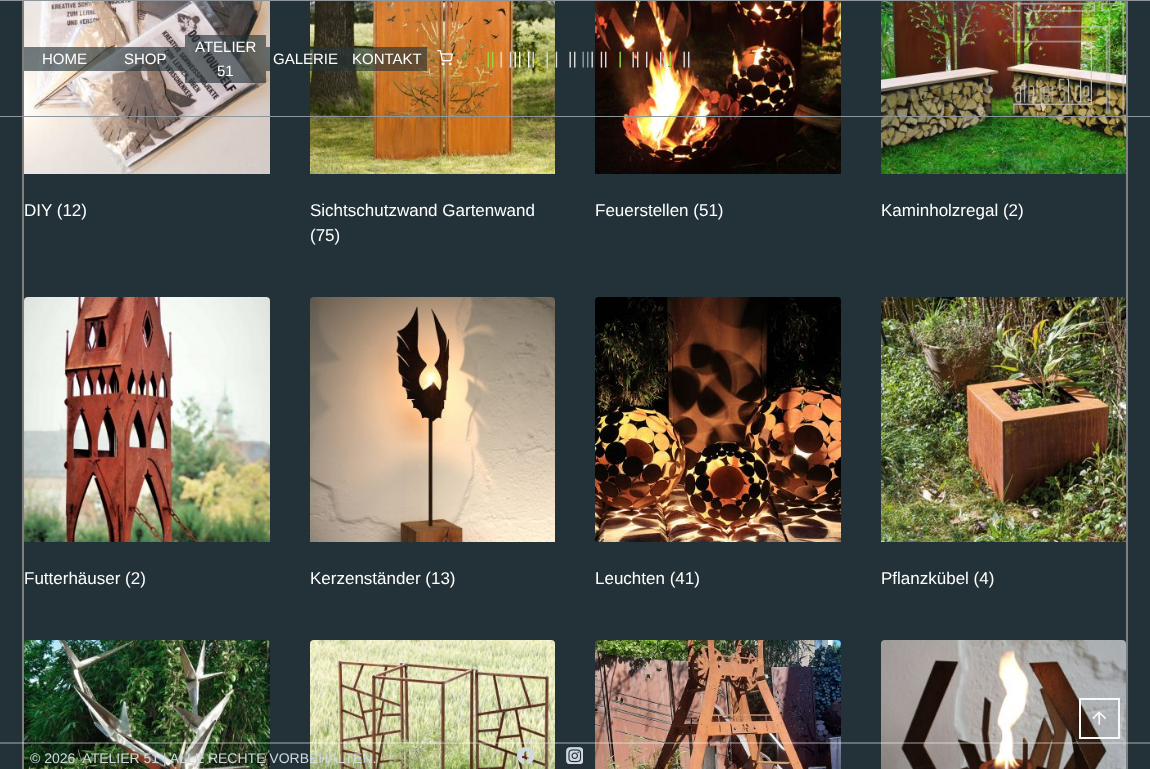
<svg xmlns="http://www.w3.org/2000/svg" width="1150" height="769">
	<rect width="100%" height="100%" fill="#233238" />
	<rect x="1126" y="0" width="2" height="769" fill="#808080" />
	<rect x="22" y="0" width="2" height="769" fill="#808080" />
	<rect x="0" y="0" width="1150" height="1" fill="#90979B" />
	<image x="24" y="1" width="246" height="173" href="assets/img3.png" />
	<image x="310" y="1" width="245" height="173" href="assets/img4.png" />
	<image x="595" y="1" width="246" height="173" href="assets/img5.png" />
	<image x="881" y="1" width="245" height="173" href="assets/img6.png" />
	<rect x="0" y="116" width="1150" height="1" fill="#90979B" />
	<rect x="24" y="47" width="81" height="24" fill="#233238" fill-opacity="0.63" />
	<text x="42" y="64" font-family="Liberation Sans" font-size="15" fill="#FFFFFF">HOME</text>
	<rect x="105" y="47" width="80" height="24" fill="#233238" fill-opacity="0.63" />
	<text x="124" y="64" font-family="Liberation Sans" font-size="15" fill="#FFFFFF">SHOP</text>
	<rect x="185" y="35" width="81" height="48" fill="#233238" fill-opacity="0.63" />
	<g font-family="Liberation Sans" font-size="15" fill="#FFFFFF">
		<text x="195" y="52">ATELIER</text>
		<text x="217" y="76">51</text>
	</g>
	<rect x="266" y="47" width="80" height="24" fill="#233238" fill-opacity="0.63" />
	<text x="273" y="64" font-family="Liberation Sans" font-size="15" fill="#FFFFFF">GALERIE</text>
	<rect x="346" y="47" width="81" height="24" fill="#233238" fill-opacity="0.63" />
	<text x="352" y="64" font-family="Liberation Sans" font-size="15" fill="#FFFFFF">KONTAKT</text>
	<image x="437" y="50" width="16" height="16" href="assets/img1.png" />
	<text x="462" y="61" font-family="Liberation Sans" font-size="10" fill="#6D9C32">0</text>
	<text x="486" y="64" font-family="Liberation Sans" font-size="17" fill="#97D844">||</text>
	<text x="499" y="64" font-family="Liberation Sans" font-size="17" fill="#DDDDDD">| |</text>
	<text x="513" y="64" font-family="Liberation Sans" font-size="17" fill="#FFFFFF">|| |</text>
	<g font-family="Liberation Sans" font-size="17" fill="#DDDDDD">
		<text x="531" y="64">|</text>
		<text x="545" y="64" xml:space="preserve">| |  ||</text>
	</g>
	<text x="581" y="64" font-family="Liberation Sans" font-size="17" fill="#999999">||</text>
	<text x="590" y="64" font-family="Liberation Sans" font-size="17" fill="#DDDDDD">| ||</text>
	<text x="618" y="64" font-family="Liberation Sans" font-size="17" fill="#97D844">|</text>
	<text x="631" y="64" font-family="Liberation Sans" font-size="17" fill="#DDDDDD" xml:space="preserve">|| |  ||</text>
	<rect x="668" y="66" width="4" height="1" fill="#54892D" />
	<text x="668" y="64" font-family="Liberation Sans" font-size="17" fill="#97D844">|</text>
	<text x="682" y="64" font-family="Liberation Sans" font-size="17" fill="#DDDDDD">||</text>
	<image x="1012" y="2" width="113" height="113" href="assets/img2.png" />
	<g font-family="Liberation Sans" font-size="17" fill="#FFFFFF">
		<text x="24" y="216">DIY (12)</text>
		<text x="310" y="216">Sichtschutzwand Gartenwand</text>
		<text x="310" y="241">(75)</text>
		<text x="595" y="216">Feuerstellen (51)</text>
		<text x="881" y="216">Kaminholzregal (2)</text>
	</g>
	<image x="24" y="297" width="246" height="245" href="assets/img7.png" />
	<text x="24" y="584" font-family="Liberation Sans" font-size="17" fill="#FFFFFF">Futterhäuser (2)</text>
	<image x="310" y="297" width="245" height="245" href="assets/img8.png" />
	<text x="310" y="584" font-family="Liberation Sans" font-size="17" fill="#FFFFFF">Kerzenständer (13)</text>
	<image x="595" y="297" width="246" height="245" href="assets/img9.png" />
	<text x="595" y="584" font-family="Liberation Sans" font-size="17" fill="#FFFFFF">Leuchten (41)</text>
	<image x="881" y="297" width="245" height="245" href="assets/img10.png" />
	<text x="881" y="584" font-family="Liberation Sans" font-size="17" fill="#FFFFFF">Pflanzkübel (4)</text>
	<image x="24" y="640" width="246" height="129" href="assets/img11.png" />
	<image x="310" y="640" width="245" height="129" href="assets/img12.png" />
	<image x="595" y="640" width="246" height="129" href="assets/img13.png" />
	<image x="881" y="640" width="245" height="129" href="assets/img14.png" />
	<rect x="0" y="742" width="1150" height="2" fill="#FFFFFF" fill-opacity="0.3" />
	<text x="30" y="763" font-family="Liberation Sans" font-size="14" fill="#D0D9DE" xml:space="preserve">© 2026  ATELIER 51 | ALLE RECHTE VORBEHALTEN.</text>
	<image x="517" y="747" width="17" height="17" href="assets/img15.png" />
	<image x="566" y="747" width="17" height="17" href="assets/img16.png" />
	<rect x="1080" y="699" width="39" height="39" fill="none" stroke="#F7FAFC" stroke-width="2" />
	<image x="1092" y="711" width="14" height="14" href="assets/img17.png" />
</svg>
